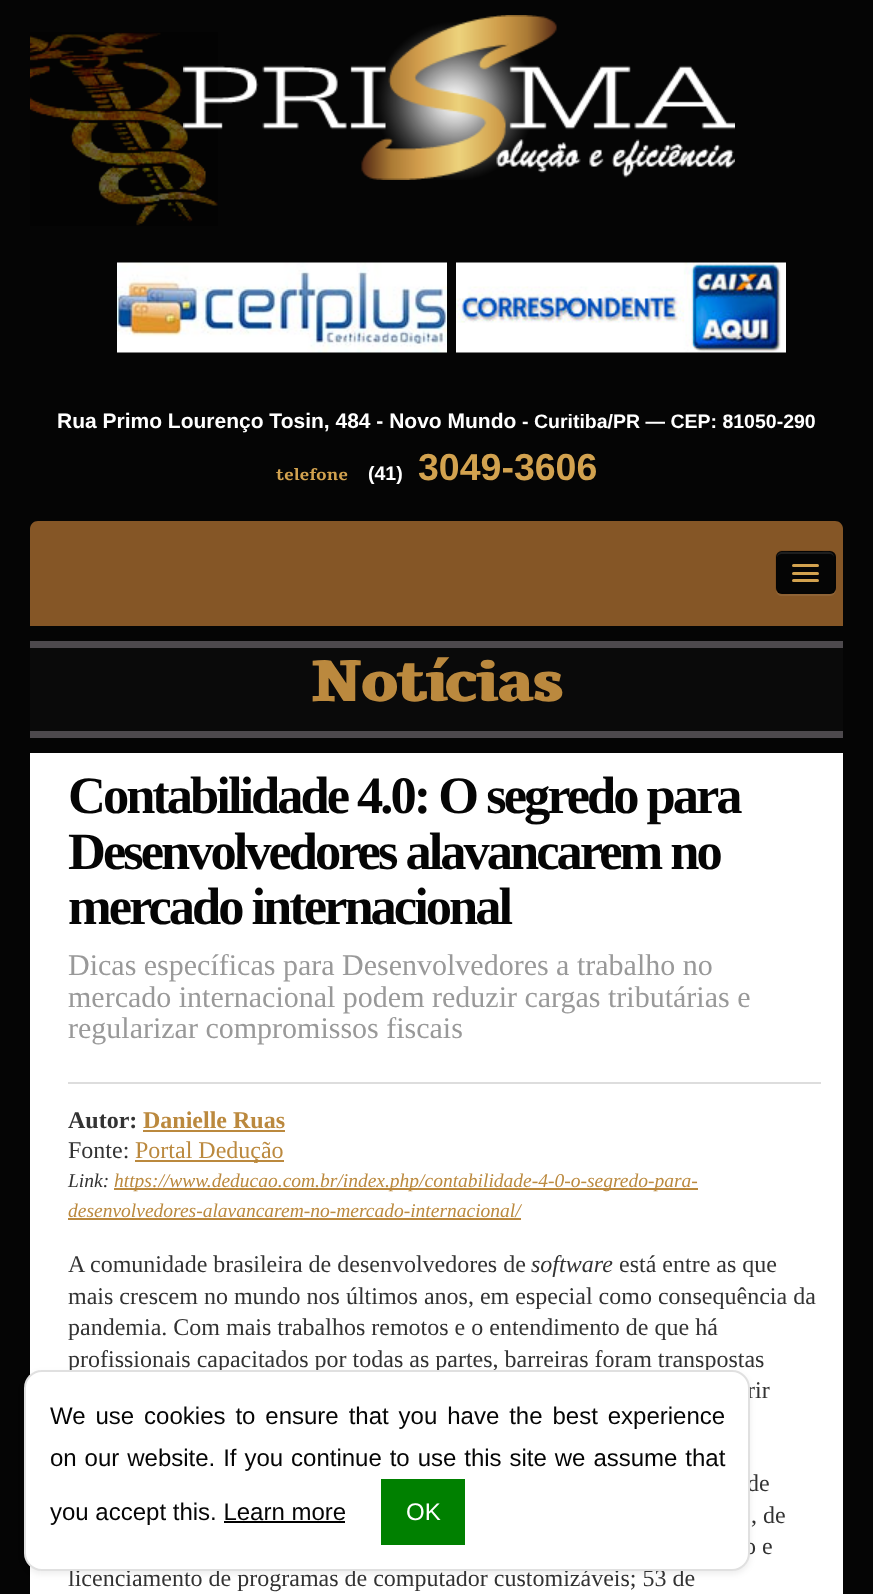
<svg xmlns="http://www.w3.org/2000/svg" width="873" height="1594">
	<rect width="100%" height="100%" fill="#050505" />
	<image x="30" y="32" width="188" height="194" href="assets/img1.png" />
	<image x="183" y="15" width="552" height="165" href="assets/img2.png" />
	<image x="117" y="262" width="330" height="91" href="assets/img3.png" />
	<image x="456" y="262" width="330" height="91" href="assets/img4.png" />
	<text x="57" y="428" font-family="Liberation Sans" font-size="21" font-weight="700" fill="#FFFFFF">Rua Primo Lourenço Tosin, 484 - Novo Mundo</text>
	<text x="522" y="428" font-family="Liberation Sans" font-size="19.5" font-weight="700" fill="#FFFFFF">- Curitiba/PR — CEP: 81050-290</text>
	<text x="276" y="480" font-family="Tienne" font-size="16.5" font-weight="700" fill="#D2A24F">telefone</text>
	<text x="368" y="480" font-family="Liberation Sans" font-size="19.5" font-weight="700" fill="#FFFFFF">(41)</text>
	<text x="418" y="480" font-family="Liberation Sans" font-size="37.5" font-weight="700" fill="#D2A24F">3049-3606</text>
	<path d="M38 521H835C839.5 521 843 524.5 843 529V626H30V529C30 524.5 33.5 521 38 521Z" fill="#855626" />
	<path d="M776 590C776 594 779 596 782 596H830C833 596 836 593 836 590V558L835 555V589L834 591C834 593 832 594 831 594H790C785 594 778 596 776 590Z" fill="#8E6336" />
	<rect x="776" y="551" width="60" height="43" rx="6" fill="#050505" />
	<path d="M782 554H830C832 554 834 556 834 558C834 550 827 552 821 552H790C784 552 777 550 777 558C777 556 779 554 782 554Z" fill="#1E1E1E" />
	<path d="M833 591.5C832 592.5 831 593 829.5 593H781.5C780 593 779 592.5 778 591.5" fill="none" stroke="#000000" stroke-opacity="0.25" stroke-width="1.5" />
	<path d="M778 591.5C777 590.5 776 589.5 776 588V556.5C776 555 777 554 778 553C779 552 780 551 781.5 551H829.5C831 551 832 552 833 553C834 554 835 555 835 556.5V588C835 589.5 834 590.5 833 591.5" fill="none" stroke="#000000" stroke-opacity="0.1" stroke-width="1.5" />
	<rect x="792" y="564" width="27" height="3" rx="1.5" fill="#D2A24F" />
	<rect x="792" y="572" width="27" height="3" rx="1.5" fill="#D2A24F" />
	<rect x="792" y="579" width="27" height="3" rx="1.5" fill="#D2A24F" />
	<rect x="30" y="648" width="813" height="83" fill="#0A0A0A" />
	<rect x="30" y="641" width="813" height="7" fill="#4D494D" />
	<rect x="30" y="731" width="813" height="7" fill="#4D494D" />
	<text x="311" y="701" font-family="Tienne" font-size="60" font-weight="900" letter-spacing="-3" fill="#BB893E">Notícias</text>
	<rect x="30" y="753" width="813" height="841" fill="#FFFFFF" />
	<g font-family="Liberation Serif" font-size="52.5" font-weight="700" letter-spacing="-3" fill="#050505">
		<text x="68" y="813">Contabilidade 4.0: O segredo para</text>
		<text x="68" y="869">Desenvolvedores alavancarem no</text>
		<text x="68" y="924">mercado internacional</text>
	</g>
	<g font-family="Liberation Serif" font-size="30" fill="#999999">
		<text x="68" y="975">Dicas específicas para Desenvolvedores a trabalho no</text>
		<text x="68" y="1007">mercado internacional podem reduzir cargas tributárias e</text>
		<text x="68" y="1038">regularizar compromissos fiscais</text>
	</g>
	<rect x="68" y="1082" width="753" height="2" fill="#DDDDDD" />
	<text x="68" y="1128" font-family="Liberation Serif" font-size="24" font-weight="700" fill="#333333">Autor:</text>
	<text x="143" y="1128" font-family="Liberation Serif" font-size="24" font-weight="700" fill="#BB893E">Danielle Ruas</text>
	<rect x="143" y="1130" width="142" height="2" fill="#BB893E" />
	<text x="68" y="1158" font-family="Liberation Serif" font-size="24" fill="#333333">Fonte:</text>
	<rect x="135" y="1160" width="149" height="2" fill="#BB893E" />
	<text x="135" y="1158" font-family="Liberation Serif" font-size="24" fill="#BB893E">Portal Dedução</text>
	<text x="68" y="1187" font-family="Liberation Serif" font-size="19.5" font-style="italic" fill="#333333">Link:</text>
	<rect x="114" y="1188" width="584" height="2" fill="#BB893E" />
	<g font-family="Liberation Serif" font-size="19.5" font-style="italic" fill="#BB893E">
		<text x="114" y="1187">https://www.deducao.com.br/index.php/contabilidade-4-0-o-segredo-para-</text>
		<text x="68" y="1217">desenvolvedores-alavancarem-no-mercado-internacional/</text>
	</g>
	<rect x="68" y="1218" width="453" height="2" fill="#BB893E" />
	<text x="68" y="1272" font-family="Liberation Serif" font-size="24" fill="#333333">A comunidade brasileira de desenvolvedores de</text>
	<text x="531" y="1272" font-family="Liberation Serif" font-size="24" font-style="italic" fill="#333333">software</text>
	<g font-family="Liberation Serif" font-size="24" fill="#333333">
		<text x="619" y="1272">está entre as que</text>
		<text x="68" y="1304">mais crescem no mundo nos últimos anos, em especial como consequência da</text>
		<text x="68" y="1335">pandemia. Com mais trabalhos remotos e o entendimento de que há</text>
		<text x="68" y="1367">profissionais capacitados por todas as partes, barreiras foram transpostas</text>
		<text x="747" y="1398">rir</text>
		<text x="747" y="1491">de</text>
		<text x="751" y="1523">, de</text>
		<text x="744" y="1554">o e</text>
		<text x="68" y="1586">licenciamento de programas de computador customizáveis; 53 de</text>
	</g>
	<rect x="24" y="1373" width="726" height="201" rx="18" fill="#000000" fill-opacity="0.07" filter="blur(3px)" />
	<rect x="24" y="1370" width="726" height="201" rx="18" fill="#FFFFFF" />
	<rect x="25" y="1371" width="724" height="199" rx="17" fill="none" stroke="#000000" stroke-opacity="0.12" stroke-width="2" />
	<g font-family="Liberation Sans" font-size="24" fill="#050505">
		<text x="50" y="1424" word-spacing="3.25">We use cookies to ensure that you have the best experience</text>
		<text x="50" y="1466" word-spacing="1.25">on our website. If you continue to use this site we assume that</text>
		<text x="50" y="1520">you accept this. Learn more</text>
	</g>
	<rect x="381" y="1479" width="84" height="66" fill="#008000" />
	<text x="406" y="1520" font-family="Liberation Sans" font-size="24" fill="#FFFFFF">OK</text>
	<rect x="224" y="1521" width="121" height="2" fill="#000000" />
</svg>
